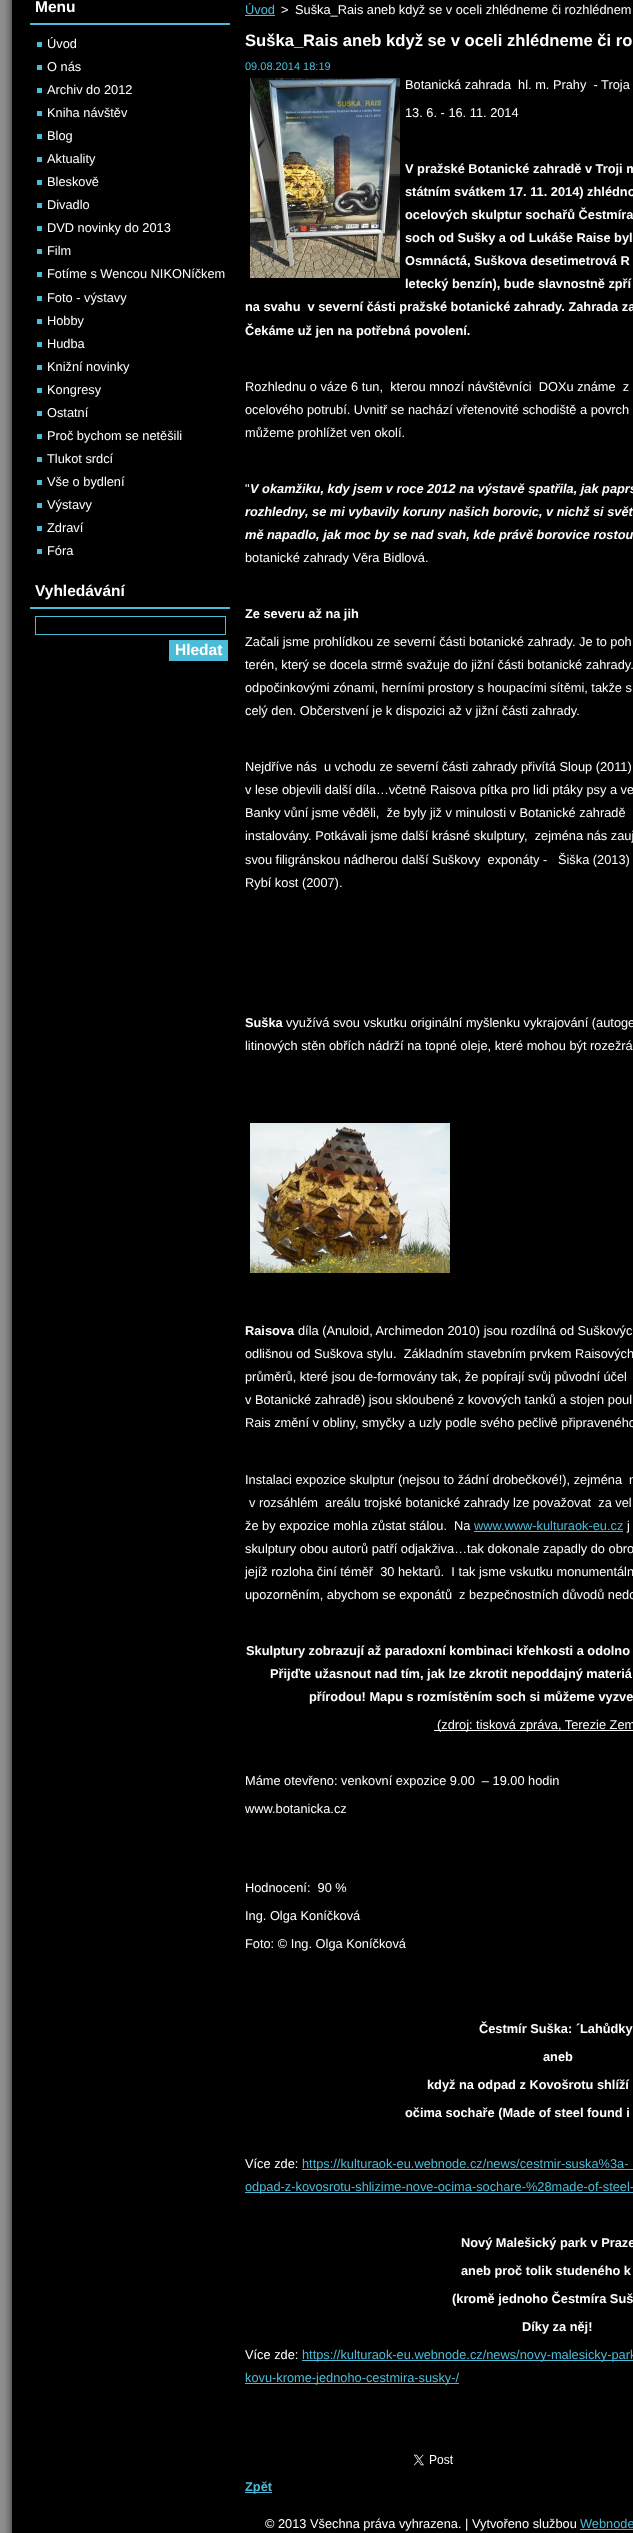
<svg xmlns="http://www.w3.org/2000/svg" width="633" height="2533">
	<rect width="100%" height="100%" fill="#8C8C8C" />
	<image x="5" y="0" width="628" height="2195" href="assets/img1.png" />
	<image x="5" y="2195" width="628" height="321" href="assets/img2.png" />
	<rect x="30" y="23" width="200" height="2" fill="#4BBCD8" />
	<text x="35" y="12" font-family="Liberation Sans" font-size="15.5" font-weight="700" fill="#FFFFFF">Menu</text>
	<text x="47" y="48" font-family="Liberation Sans" font-size="12.8" fill="#FFFFFF">Úvod</text>
	<rect x="37" y="42" width="5" height="5" fill="#4BBDD8" />
	<text x="47" y="71" font-family="Liberation Sans" font-size="12.8" fill="#FFFFFF">O nás</text>
	<rect x="37" y="65" width="5" height="5" fill="#4BBDD8" />
	<text x="47" y="94" font-family="Liberation Sans" font-size="12.8" fill="#FFFFFF">Archiv do 2012</text>
	<rect x="37" y="88" width="5" height="5" fill="#4BBDD8" />
	<text x="47" y="117" font-family="Liberation Sans" font-size="12.8" fill="#FFFFFF">Kniha návštěv</text>
	<rect x="37" y="111" width="5" height="5" fill="#4BBDD8" />
	<text x="47" y="140" font-family="Liberation Sans" font-size="12.8" fill="#FFFFFF">Blog</text>
	<rect x="37" y="134" width="5" height="5" fill="#4BBDD8" />
	<text x="47" y="163" font-family="Liberation Sans" font-size="12.8" fill="#FFFFFF">Aktuality</text>
	<rect x="37" y="157" width="5" height="5" fill="#4BBDD8" />
	<text x="47" y="186" font-family="Liberation Sans" font-size="12.8" fill="#FFFFFF">Bleskově</text>
	<rect x="37" y="180" width="5" height="5" fill="#4BBDD8" />
	<text x="47" y="209" font-family="Liberation Sans" font-size="12.8" fill="#FFFFFF">Divadlo</text>
	<rect x="37" y="203" width="5" height="5" fill="#4BBDD8" />
	<text x="47" y="232" font-family="Liberation Sans" font-size="12.8" fill="#FFFFFF">DVD novinky do 2013</text>
	<rect x="37" y="226" width="5" height="5" fill="#4BBDD8" />
	<text x="47" y="255" font-family="Liberation Sans" font-size="12.8" fill="#FFFFFF">Film</text>
	<rect x="37" y="249" width="5" height="5" fill="#4BBDD8" />
	<text x="47" y="278" font-family="Liberation Sans" font-size="12.8" fill="#FFFFFF">Fotíme s Wencou NIKONíčkem</text>
	<rect x="37" y="272" width="5" height="5" fill="#4BBDD8" />
	<text x="47" y="302" font-family="Liberation Sans" font-size="12.8" fill="#FFFFFF">Foto - výstavy</text>
	<rect x="37" y="296" width="5" height="5" fill="#4BBDD8" />
	<text x="47" y="325" font-family="Liberation Sans" font-size="12.8" fill="#FFFFFF">Hobby</text>
	<rect x="37" y="319" width="5" height="5" fill="#4BBDD8" />
	<text x="47" y="348" font-family="Liberation Sans" font-size="12.8" fill="#FFFFFF">Hudba</text>
	<rect x="37" y="342" width="5" height="5" fill="#4BBDD8" />
	<text x="47" y="371" font-family="Liberation Sans" font-size="12.8" fill="#FFFFFF">Knižní novinky</text>
	<rect x="37" y="365" width="5" height="5" fill="#4BBDD8" />
	<text x="47" y="394" font-family="Liberation Sans" font-size="12.8" fill="#FFFFFF">Kongresy</text>
	<rect x="37" y="388" width="5" height="5" fill="#4BBDD8" />
	<text x="47" y="417" font-family="Liberation Sans" font-size="12.8" fill="#FFFFFF">Ostatní</text>
	<rect x="37" y="411" width="5" height="5" fill="#4BBDD8" />
	<text x="47" y="440" font-family="Liberation Sans" font-size="12.8" fill="#FFFFFF">Proč bychom se netěšili</text>
	<rect x="37" y="434" width="5" height="5" fill="#4BBDD8" />
	<text x="47" y="463" font-family="Liberation Sans" font-size="12.8" fill="#FFFFFF">Tlukot srdcí</text>
	<rect x="37" y="457" width="5" height="5" fill="#4BBDD8" />
	<text x="47" y="486" font-family="Liberation Sans" font-size="12.8" fill="#FFFFFF">Vše o bydlení</text>
	<rect x="37" y="480" width="5" height="5" fill="#4BBDD8" />
	<text x="47" y="509" font-family="Liberation Sans" font-size="12.8" fill="#FFFFFF">Výstavy</text>
	<rect x="37" y="503" width="5" height="5" fill="#4BBDD8" />
	<text x="47" y="532" font-family="Liberation Sans" font-size="12.8" fill="#FFFFFF">Zdraví</text>
	<rect x="37" y="526" width="5" height="5" fill="#4BBDD8" />
	<text x="47" y="555" font-family="Liberation Sans" font-size="12.8" fill="#FFFFFF">Fóra</text>
	<rect x="37" y="549" width="5" height="5" fill="#4BBDD8" />
	<rect x="30" y="607" width="200" height="2" fill="#4BBCD8" />
	<text x="35" y="596" font-family="Liberation Sans" font-size="15.5" font-weight="700" fill="#FFFFFF">Vyhledávání</text>
	<rect x="35.5" y="616.5" width="190" height="18" fill="none" stroke="#4BBCD8" />
	<rect x="169" y="640" width="59" height="21" fill="#4BBCD8" />
	<text x="175" y="655" font-family="Liberation Sans" font-size="15.5" font-weight="700" fill="#FFFFFF">Hledat</text>
	<text x="245" y="14" font-family="Liberation Sans" font-size="12.8" fill="#4BBCD8">Úvod</text>
	<rect x="245" y="15" width="30" height="1" fill="#4BBCD8" />
	<g font-family="Liberation Sans" font-size="12.8" fill="#FFFFFF">
		<text x="281" y="14">&gt;</text>
		<text x="295" y="14">Suška_Rais aneb když se v oceli zhlédneme či rozhlédnem</text>
	</g>
	<text x="245" y="46" font-family="Liberation Sans" font-size="16.6" font-weight="700" fill="#FFFFFF">Suška_Rais aneb když se v oceli zhlédneme či ro</text>
	<text x="245" y="70" font-family="Liberation Sans" font-size="11" fill="#4BBCD8">09.08.2014 18:19</text>
	<image x="250" y="78" width="150" height="200" href="assets/img3.png" />
	<g font-family="Liberation Sans" font-size="12.8" fill="#FFFFFF">
		<text x="405" y="89" xml:space="preserve">Botanická zahrada  hl. m. Prahy  - Troja</text>
		<text x="405" y="117">13. 6. - 16. 11. 2014</text>
	</g>
	<g font-family="Liberation Sans" font-size="12.8" font-weight="700" fill="#FFFFFF">
		<text x="405" y="173">V pražské Botanické zahradě v Troji m</text>
		<text x="405" y="196">státním svátkem 17. 11. 2014) zhlédno</text>
		<text x="405" y="219">ocelových skulptur sochařů Čestmíra</text>
		<text x="405" y="242">soch od Sušky a od Lukáše Raise byl</text>
		<text x="405" y="265">Osmnáctá, Suškova desetimetrová R</text>
		<text x="405" y="288">letecký benzín), bude slavnostně zpří</text>
		<text x="245" y="311" xml:space="preserve">na svahu  v severní části pražské botanické zahrady. Zahrada za</text>
		<text x="245" y="335">Čekáme už jen na potřebná povolení.</text>
	</g>
	<g font-family="Liberation Sans" font-size="12.8" fill="#FFFFFF">
		<text x="245" y="391" xml:space="preserve">Rozhlednu o váze 6 tun,  kterou mnozí návštěvníci  DOXu známe  z</text>
		<text x="245" y="414">ocelového potrubí. Uvnitř se nachází vřetenovité schodiště a povrch</text>
		<text x="245" y="437">můžeme prohlížet ven okolí.</text>
		<text x="245" y="493">"</text>
	</g>
	<g font-family="Liberation Sans" font-size="12.8" font-weight="700" font-style="italic" fill="#FFFFFF">
		<text x="250" y="493">V okamžiku, kdy jsem v roce 2012 na výstavě spatřila, jak paprs</text>
		<text x="245" y="516">rozhledny, se mi vybavily koruny našich borovic, v nichž si svět</text>
		<text x="245" y="539">mě napadlo, jak moc by se nad svah, kde právě borovice rostou</text>
	</g>
	<text x="245" y="562" font-family="Liberation Sans" font-size="12.8" fill="#FFFFFF">botanické zahrady Věra Bidlová.</text>
	<text x="245" y="618" font-family="Liberation Sans" font-size="12.8" font-weight="700" fill="#FFFFFF">Ze severu až na jih</text>
	<g font-family="Liberation Sans" font-size="12.8" fill="#FFFFFF">
		<text x="245" y="646">Začali jsme prohlídkou ze severní části botanické zahrady. Je to poh</text>
		<text x="245" y="669">terén, který se docela strmě svažuje do jižní části botanické zahrady.</text>
		<text x="245" y="692">odpočinkovými zónami, herními prostory s houpacími sítěmi, takže s</text>
		<text x="245" y="715">celý den. Občerstvení je k dispozici až v jižní části zahrady.</text>
		<text x="245" y="771" xml:space="preserve">Nejdříve nás  u vchodu ze severní části zahrady přivítá Sloup (2011)</text>
		<text x="245" y="794">v lese objevili další díla…včetně Raisova pítka pro lidi ptáky psy a ve</text>
		<text x="245" y="817" xml:space="preserve">Banky vůní jsme věděli,  že byly již v minulosti v Botanické zahradě</text>
		<text x="245" y="840" xml:space="preserve">instalovány. Potkávali jsme další krásné skulptury,  zejména nás zauj</text>
		<text x="245" y="864" xml:space="preserve">svou filigránskou nádherou další Suškovy  exponáty -   Šiška (2013)</text>
		<text x="245" y="887">Rybí kost (2007).</text>
	</g>
	<text x="245" y="1027" font-family="Liberation Sans" font-size="12.8" font-weight="700" fill="#FFFFFF">Suška</text>
	<g font-family="Liberation Sans" font-size="12.8" fill="#FFFFFF">
		<text x="286" y="1027">využívá svou vskutku originální myšlenku vykrajování (autoge</text>
		<text x="245" y="1050">litinových stěn obřích nádrží na topné oleje, které mohou být rozežrá</text>
	</g>
	<image x="250" y="1123" width="200" height="150" href="assets/img4.png" />
	<text x="245" y="1335" font-family="Liberation Sans" font-size="12.8" font-weight="700" fill="#FFFFFF">Raisova</text>
	<g font-family="Liberation Sans" font-size="12.8" fill="#FFFFFF">
		<text x="298" y="1335">díla (Anuloid, Archimedon 2010) jsou rozdílná od Suškovýc</text>
		<text x="245" y="1358" xml:space="preserve">odlišnou od Suškova stylu.  Základním stavebním prvkem Raisových</text>
		<text x="245" y="1381">průměrů, které jsou de-formovány tak, že popírají svůj původní účel</text>
		<text x="245" y="1404">v Botanické zahradě) jsou skloubené z kovových tanků a stojen poul</text>
		<text x="245" y="1427">Rais změní v obliny, smyčky a uzly podle svého pečlivě připraveného</text>
		<text x="245" y="1484" xml:space="preserve">Instalaci expozice skulptur (nejsou to žádní drobečkové!), zejména  n</text>
		<text x="249" y="1507" xml:space="preserve">v rozsáhlém  areálu trojské botanické zahrady lze považovat  za vel</text>
		<text x="245" y="1530" xml:space="preserve">že by expozice mohla zůstat stálou.  Na</text>
	</g>
	<text x="474" y="1530" font-family="Liberation Sans" font-size="12.8" fill="#4BBCD8">www.www-kulturaok-eu.cz</text>
	<rect x="474" y="1531" width="149" height="1" fill="#4BBCD8" />
	<g font-family="Liberation Sans" font-size="12.8" fill="#FFFFFF">
		<text x="627" y="1530">j</text>
		<text x="245" y="1553">skulptury obou autorů patří odjakživa…tak dokonale zapadly do obro</text>
		<text x="245" y="1576" xml:space="preserve">jejíž rozloha činí téměř  30 hektarů.  I tak jsme vskutku monumentáln</text>
		<text x="245" y="1599" xml:space="preserve">upozorněním, abychom se exponátů  z bezpečnostních důvodů nedo</text>
	</g>
	<g font-family="Liberation Sans" font-size="12.8" font-weight="700" fill="#FFFFFF">
		<text x="246" y="1655">Skulptury zobrazují až paradoxní kombinaci křehkosti a odolno</text>
		<text x="270" y="1678">Přijďte užasnout nad tím, jak lze zkrotit nepoddajný materiá</text>
		<text x="309" y="1701">přírodou! Mapu s rozmístěním soch si můžeme vyzve</text>
	</g>
	<rect x="434" y="1730" width="199" height="1" fill="#FFFFFF" />
	<g font-family="Liberation Sans" font-size="12.8" fill="#FFFFFF">
		<text x="437" y="1729">(zdroj: tisková zpráva, Terezie Zem</text>
		<text x="245" y="1785" xml:space="preserve">Máme otevřeno: venkovní expozice 9.00  – 19.00 hodin</text>
		<text x="245" y="1813">www.botanicka.cz</text>
		<text x="245" y="1892" xml:space="preserve">Hodnocení:  90 %</text>
		<text x="245" y="1920">Ing. Olga Koníčková</text>
		<text x="245" y="1948">Foto: © Ing. Olga Koníčková</text>
	</g>
	<g font-family="Liberation Sans" font-size="12.8" font-weight="700" fill="#FFFFFF">
		<text x="479" y="2033">Čestmír Suška: ´Lahůdky</text>
		<text x="543" y="2061">aneb</text>
		<text x="427" y="2089">když na odpad z Kovošrotu shlíží</text>
		<text x="405" y="2117">očima sochaře (Made of steel found i</text>
	</g>
	<text x="245" y="2168" font-family="Liberation Sans" font-size="12.8" fill="#FFFFFF">Více zde:</text>
	<rect x="302" y="2169" width="331" height="1" fill="#4BBCD8" />
	<text x="302" y="2168" font-family="Liberation Sans" font-size="12.8" fill="#4BBCD8">https://kulturaok-eu.webnode.cz/news/cestmir-suska%3a-</text>
	<rect x="245" y="2192" width="388" height="1" fill="#4BBCD8" />
	<text x="245" y="2191" font-family="Liberation Sans" font-size="12.8" fill="#4BBCD8">odpad-z-kovosrotu-shlizime-nove-ocima-sochare-%28made-of-steel-</text>
	<g font-family="Liberation Sans" font-size="12.8" font-weight="700" fill="#FFFFFF">
		<text x="461" y="2247">Nový Malešický park v Praze</text>
		<text x="461" y="2275">aneb proč tolik studeného k</text>
		<text x="452" y="2303">(kromě jednoho Čestmíra Suš</text>
		<text x="522" y="2331">Díky za něj!</text>
	</g>
	<text x="245" y="2359" font-family="Liberation Sans" font-size="12.8" fill="#FFFFFF">Více zde:</text>
	<rect x="302" y="2360" width="331" height="1" fill="#4BBCD8" />
	<text x="302" y="2359" font-family="Liberation Sans" font-size="12.8" fill="#4BBCD8">https://kulturaok-eu.webnode.cz/news/novy-malesicky-park</text>
	<rect x="245" y="2383" width="214" height="1" fill="#4BBCD8" />
	<text x="245" y="2382" font-family="Liberation Sans" font-size="12.8" fill="#4BBCD8">kovu-krome-jednoho-cestmira-susky-/</text>
	<image x="413" y="2454" width="40" height="12" href="assets/img5.png" />
	<rect x="245" y="2492" width="27" height="1" fill="#4BBCD8" />
	<text x="245" y="2491" font-family="Liberation Sans" font-size="12.8" font-weight="700" fill="#4BBCD8">Zpět</text>
	<image x="5" y="2516" width="628" height="17" href="assets/img6.png" />
	<text x="265" y="2528" font-family="Liberation Sans" font-size="12.8" fill="#FFFFFF">© 2013 Všechna práva vyhrazena. | Vytvořeno službou</text>
	<text x="580" y="2528" font-family="Liberation Sans" font-size="12.8" fill="#4BBCD8">Webnode</text>
	<rect x="580" y="2529" width="53" height="1" fill="#4BBCD8" />
</svg>
